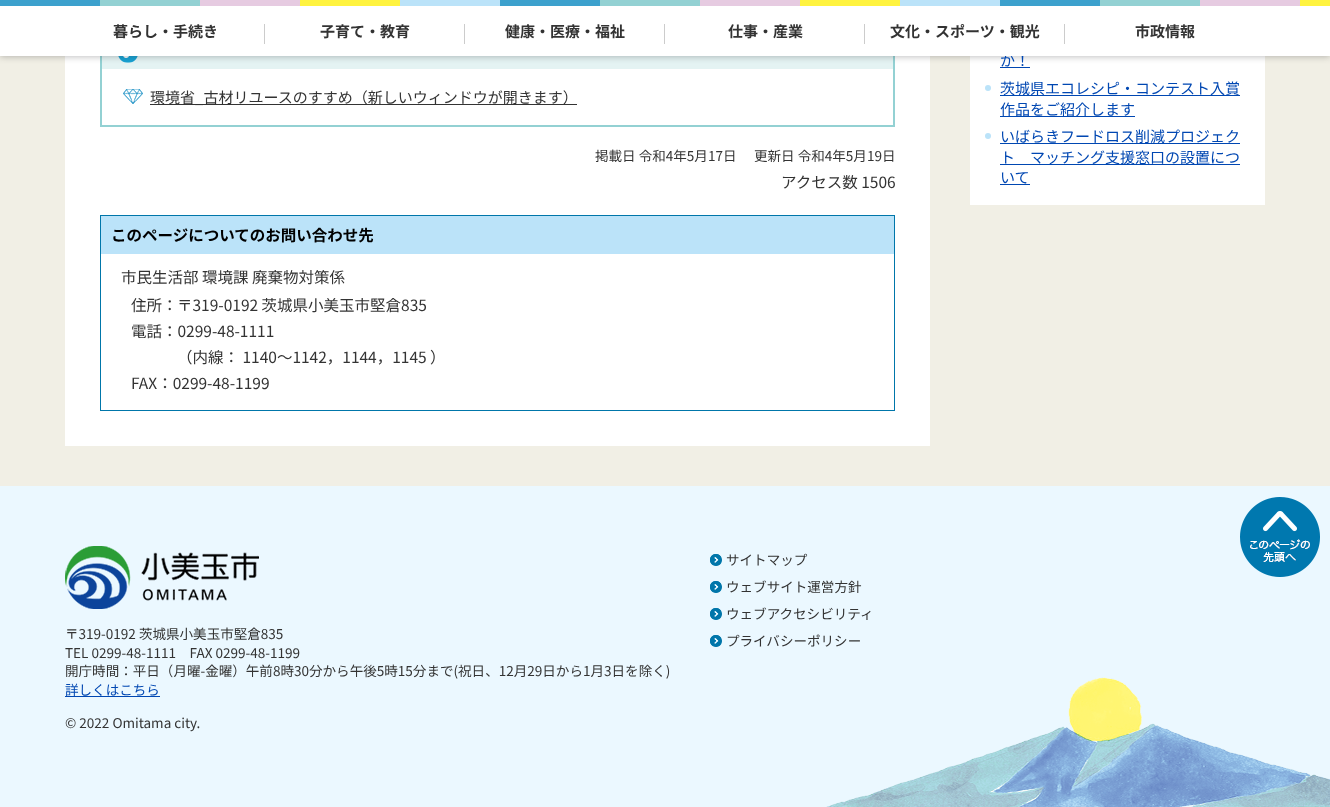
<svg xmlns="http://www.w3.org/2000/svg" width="1330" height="807">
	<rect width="100%" height="100%" fill="#F1EFE5" />
	<rect x="65" y="56" width="865" height="390" fill="#FFFFFF" />
	<rect x="101" y="28" width="793" height="98" fill="none" stroke="#93D1D3" stroke-width="2" />
	<rect x="102" y="56" width="791" height="13" fill="#E4F3F3" />
	<image x="118" y="56" width="20" height="7" href="assets/img1.png" />
	<rect x="970" y="56" width="295" height="149" fill="#FFFFFF" />
	<rect x="0" y="1" width="1330" height="56" fill="#202124" fill-opacity="0.28" filter="blur(3px)" />
	<text x="1000" y="66" font-family="Noto Sans JP" font-size="15" fill="#0047B2">か！</text>
	<rect x="0" y="6" width="1330" height="50" fill="#FFFFFF" />
	<rect x="0" y="0" width="100" height="6" fill="#3CA1CD" />
	<rect x="100" y="0" width="100" height="6" fill="#93D1D3" />
	<rect x="200" y="0" width="100" height="6" fill="#E6CBE1" />
	<rect x="300" y="0" width="100" height="6" fill="#FFF33F" />
	<rect x="400" y="0" width="100" height="6" fill="#BBE3F9" />
	<rect x="500" y="0" width="100" height="6" fill="#3CA1CD" />
	<rect x="600" y="0" width="100" height="6" fill="#93D1D3" />
	<rect x="700" y="0" width="100" height="6" fill="#E6CBE1" />
	<rect x="800" y="0" width="100" height="6" fill="#FFF33F" />
	<rect x="900" y="0" width="100" height="6" fill="#BBE3F9" />
	<rect x="1000" y="0" width="100" height="6" fill="#3CA1CD" />
	<rect x="1100" y="0" width="100" height="6" fill="#93D1D3" />
	<rect x="1200" y="0" width="100" height="6" fill="#E6CBE1" />
	<rect x="1300" y="0" width="30" height="6" fill="#FFF33F" />
	<text x="113" y="37" font-family="Noto Sans JP" font-size="15" font-weight="700" fill="#333333">暮らし・手続き</text>
	<rect x="264" y="24" width="1" height="20" fill="#CCCCCC" />
	<text x="320" y="37" font-family="Noto Sans JP" font-size="15" font-weight="700" fill="#333333">子育て・教育</text>
	<rect x="464" y="24" width="1" height="20" fill="#CCCCCC" />
	<text x="505" y="37" font-family="Noto Sans JP" font-size="15" font-weight="700" fill="#333333">健康・医療・福祉</text>
	<rect x="664" y="24" width="1" height="20" fill="#CCCCCC" />
	<text x="728" y="37" font-family="Noto Sans JP" font-size="15" font-weight="700" fill="#333333">仕事・産業</text>
	<rect x="864" y="24" width="1" height="20" fill="#CCCCCC" />
	<text x="890" y="37" font-family="Noto Sans JP" font-size="15" font-weight="700" fill="#333333">文化・スポーツ・観光</text>
	<rect x="1064" y="24" width="1" height="20" fill="#CCCCCC" />
	<text x="1135" y="37" font-family="Noto Sans JP" font-size="15" font-weight="700" fill="#333333">市政情報</text>
	<image x="123" y="89" width="20" height="15" href="assets/img2.png" />
	<rect x="150" y="104" width="427" height="1" fill="#333333" />
	<text x="150" y="103" font-family="Noto Sans JP" font-size="15" fill="#333333">環境省_古材リユースのすすめ（新しいウィンドウが開きます）</text>
	<g font-family="Noto Sans JP" font-size="13.55" fill="#333333">
		<text x="595" y="161">掲載日 令和4年5月17日</text>
		<text x="754" y="161">更新日 令和4年5月19日</text>
	</g>
	<text x="781" y="188" font-family="Noto Sans JP" font-size="15.5" fill="#333333">アクセス数 1506</text>
	<rect x="100.5" y="215.5" width="794" height="195" fill="none" stroke="#0076AA" />
	<rect x="101" y="216" width="793" height="38" fill="#BBE3F9" />
	<text x="111" y="241" font-family="Noto Sans JP" font-size="15.5" font-weight="700" fill="#000000">このページについてのお問い合わせ先</text>
	<g font-family="Noto Sans JP" font-size="15.5" fill="#333333">
		<text x="121" y="283">市民生活部 環境課 廃棄物対策係</text>
		<text x="131" y="311">住所：</text>
		<text x="177" y="311">〒319-0192 茨城県小美玉市堅倉835</text>
		<text x="131" y="337">電話：0299-48-1111</text>
		<text x="177" y="363">（内線： 1140〜1142，1144，1145 ）</text>
		<text x="131" y="389">FAX：0299-48-1199</text>
	</g>
	<rect x="1000" y="67" width="30" height="1" fill="#0047B2" />
	<circle cx="988" cy="88" r="3" fill="#BBE3F9" />
	<rect x="1000" y="95" width="240" height="1" fill="#0047B2" />
	<text x="1000" y="94" font-family="Noto Sans JP" font-size="15" fill="#0047B2">茨城県エコレシピ・コンテスト入賞</text>
	<rect x="1000" y="116" width="135" height="1" fill="#0047B2" />
	<text x="1000" y="115" font-family="Noto Sans JP" font-size="15" fill="#0047B2">作品をご紹介します</text>
	<circle cx="988" cy="136" r="3" fill="#BBE3F9" />
	<rect x="1000" y="143" width="240" height="1" fill="#0047B2" />
	<text x="1000" y="142" font-family="Noto Sans JP" font-size="15" fill="#0047B2">いばらきフードロス削減プロジェク</text>
	<rect x="1000" y="164" width="240" height="1" fill="#0047B2" />
	<g font-family="Noto Sans JP" font-size="15" fill="#0047B2">
		<text x="1000" y="163">ト　マッチング支援窓口の設置につ</text>
		<text x="1000" y="183">いて</text>
	</g>
	<rect x="1000" y="184" width="30" height="1" fill="#0047B2" />
	<rect x="0" y="486" width="1330" height="321" fill="#EBF8FF" />
	<image x="1240" y="497" width="80" height="80" href="assets/img3.png" />
	<image x="710" y="554" width="12" height="12" href="assets/img4.png" />
	<text x="726" y="565" font-family="Noto Sans JP" font-size="13.55" fill="#333333">サイトマップ</text>
	<image x="710" y="581" width="12" height="12" href="assets/img4.png" />
	<text x="726" y="592" font-family="Noto Sans JP" font-size="13.55" fill="#333333">ウェブサイト運営方針</text>
	<image x="710" y="608" width="12" height="12" href="assets/img4.png" />
	<text x="726" y="619" font-family="Noto Sans JP" font-size="13.55" fill="#333333">ウェブアクセシビリティ</text>
	<image x="710" y="635" width="12" height="12" href="assets/img4.png" />
	<text x="726" y="646" font-family="Noto Sans JP" font-size="13.55" fill="#333333">プライバシーポリシー</text>
	<image x="65" y="546" width="194" height="63" href="assets/img5.png" />
	<g font-family="Noto Sans JP" font-size="13.55" fill="#333333">
		<text x="65" y="639">〒319-0192 茨城県小美玉市堅倉835</text>
		<text x="65" y="658">TEL 0299-48-1111　FAX 0299-48-1199</text>
		<text x="65" y="676">開庁時間：平日（月曜-金曜）午前8時30分から午後5時15分まで(祝日、12月29日から1月3日を除く)</text>
	</g>
	<rect x="65" y="696" width="95" height="1" fill="#0047B2" />
	<text x="65" y="695" font-family="Noto Sans JP" font-size="13.55" fill="#0047B2">詳しくはこちら</text>
	<text x="65" y="728" font-family="Noto Sans JP" font-size="13.55" fill="#333333">© 2022 Omitama city.</text>
	<image x="826" y="677" width="504" height="130" href="assets/img6.png" />
</svg>
